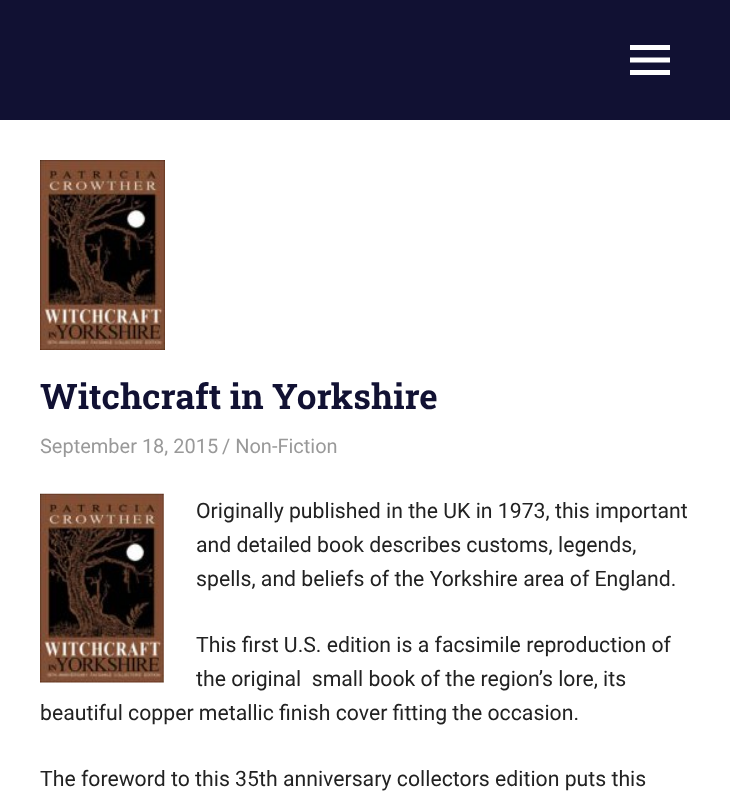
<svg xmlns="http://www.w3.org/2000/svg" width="730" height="791">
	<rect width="100%" height="100%" fill="#FFFFFF" />
	<rect x="0" y="0" width="730" height="120" fill="#111133" />
	<image x="630" y="45" width="40" height="30" href="assets/img1.png" />
	<image x="40" y="160" width="125" height="190" href="assets/img2.png" />
	<text x="40" y="409" font-family="Roboto Slab" font-size="35" font-weight="700" fill="#111133">Witchcraft in Yorkshire</text>
	<g font-family="Roboto" font-size="20" fill="#999999">
		<text x="40" y="453">September 18, 2015</text>
		<text x="222" y="453">/ Non-Fiction</text>
	</g>
	<image x="40" y="493" width="124" height="190" href="assets/img3.png" />
	<g font-family="Roboto" font-size="21.25" fill="#222222">
		<text x="196" y="518">Originally published in the UK in 1973, this important</text>
		<text x="196" y="552">and detailed book describes customs, legends,</text>
		<text x="196" y="586">spells, and beliefs of the Yorkshire area of England.</text>
		<text x="196" y="652">This first U.S. edition is a facsimile reproduction of</text>
		<text x="196" y="686" xml:space="preserve">the original  small book of the region’s lore, its</text>
		<text x="40" y="720">beautiful copper metallic finish cover fitting the occasion.</text>
		<text x="40" y="786">The foreword to this 35th anniversary collectors edition puts this</text>
	</g>
</svg>
